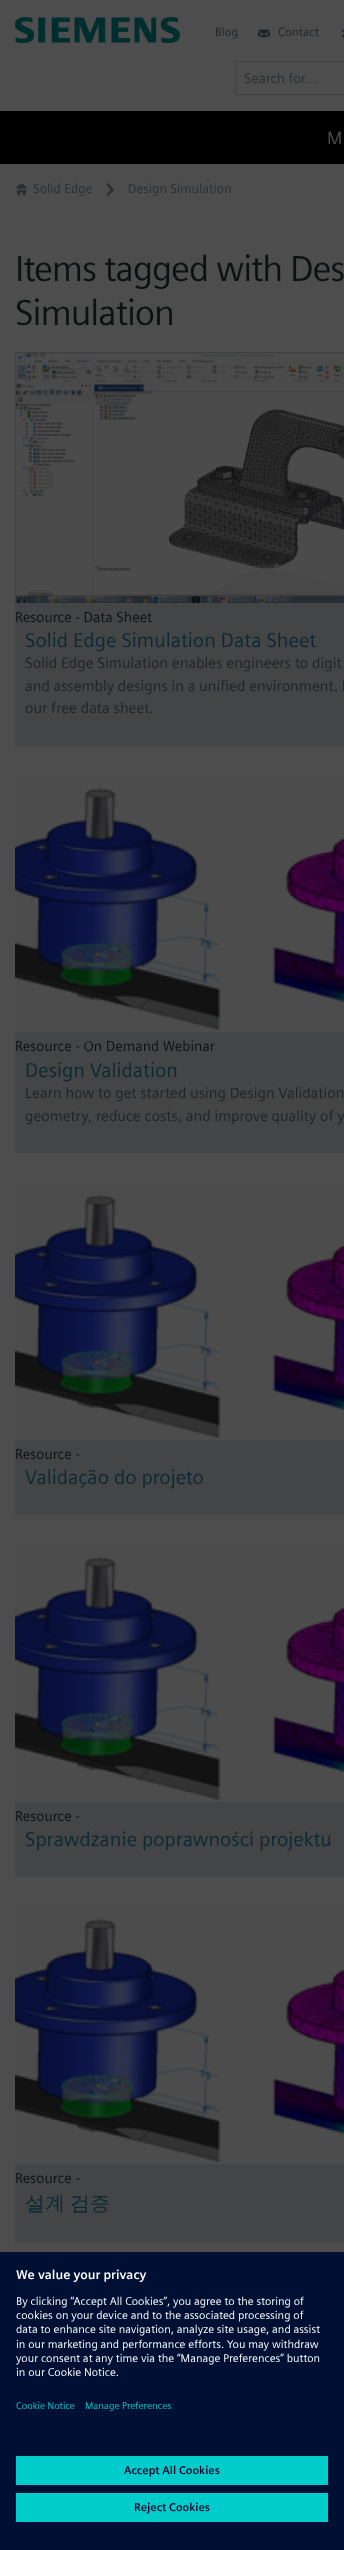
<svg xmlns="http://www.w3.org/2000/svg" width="344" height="2550">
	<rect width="100%" height="100%" fill="#4D4D4D" />
	<image x="15" y="17" width="165" height="26" href="assets/img1.png" />
	<text x="215" y="36" font-family="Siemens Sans" font-size="12" fill="#202428">Blog</text>
	<image x="258" y="29" width="12" height="9" href="assets/img2.png" />
	<text x="278" y="36" font-family="Siemens Sans" font-size="12" fill="#202428">Contact</text>
	<image x="341" y="29" width="3" height="9" href="assets/img3.png" />
	<rect x="235.5" y="61.5" width="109" height="33" fill="none" stroke="#3E4144" />
	<text x="244" y="83" font-family="Siemens Sans" font-size="14" fill="#2A2F32">Search for…</text>
	<rect x="0" y="111" width="344" height="53" fill="#000000" />
	<text x="327" y="144" font-family="Siemens Sans" font-size="18" fill="#4D4D4D">M</text>
	<image x="16" y="184" width="11" height="12" href="assets/img4.png" />
	<text x="33" y="193" font-family="Siemens Sans" font-size="13" fill="#2A2F32">Solid Edge</text>
	<image x="106" y="182" width="9" height="15" href="assets/img5.png" />
	<text x="128" y="193" font-family="Siemens Sans" font-size="13" fill="#2A2F32">Design Simulation</text>
	<g font-family="Siemens Sans" font-size="36" letter-spacing="-1.1" fill="#0E1112">
		<text x="15" y="281">Items tagged with Des</text>
		<text x="15" y="325">Simulation</text>
	</g>
	<rect x="15" y="603" width="329" height="143" fill="#434547" />
	<image x="15" y="352" width="329" height="251" href="assets/img6.png" />
	<text x="15" y="622" font-family="Siemens Sans" font-size="14.4" fill="#0E1112">Resource - Data Sheet</text>
	<text x="25" y="647" font-family="Siemens Sans" font-size="20" fill="#0B2933">Solid Edge Simulation Data Sheet</text>
	<g font-family="Siemens Sans" font-size="15" fill="#202428">
		<text x="25" y="668">Solid Edge Simulation enables engineers to digit</text>
		<text x="25" y="691">and assembly designs in a unified environment. L</text>
		<text x="25" y="713">our free data sheet.</text>
	</g>
	<rect x="15" y="1032" width="329" height="121" fill="#434547" />
	<image x="15" y="776" width="329" height="256" href="assets/img7.png" />
	<text x="15" y="1051" font-family="Siemens Sans" font-size="14.4" fill="#0E1112">Resource - On Demand Webinar</text>
	<text x="25" y="1077" font-family="Siemens Sans" font-size="20" fill="#0B2933">Design Validation</text>
	<g font-family="Siemens Sans" font-size="15" fill="#202428">
		<text x="25" y="1098">Learn how to get started using Design Validation</text>
		<text x="25" y="1121">geometry, reduce costs, and improve quality of y</text>
	</g>
	<rect x="15" y="1440" width="329" height="75" fill="#434547" />
	<image x="15" y="1183" width="329" height="257" href="assets/img8.png" />
	<text x="15" y="1459" font-family="Siemens Sans" font-size="14.4" fill="#0E1112">Resource -</text>
	<text x="25" y="1484" font-family="Siemens Sans" font-size="20" fill="#0B2933">Validação do projeto</text>
	<rect x="15" y="1802" width="329" height="75" fill="#434547" />
	<image x="15" y="1545" width="329" height="257" href="assets/img8.png" />
	<text x="15" y="1821" font-family="Siemens Sans" font-size="14.4" fill="#0E1112">Resource -</text>
	<text x="25" y="1846" font-family="Siemens Sans" font-size="20" fill="#0B2933">Sprawdzanie poprawności projektu</text>
	<rect x="15" y="2164" width="329" height="78" fill="#434547" />
	<image x="15" y="1907" width="329" height="257" href="assets/img8.png" />
	<text x="15" y="2183" font-family="Siemens Sans" font-size="14.4" fill="#0E1112">Resource -</text>
	<text x="25" y="2210" word-spacing="-1" font-family="WenQuanYi Zen Hei" font-size="20" font-weight="500" fill="#0B2933">설계 검증</text>
	<rect x="0" y="2252" width="344" height="298" fill="#001034" />
	<text x="16" y="2279" font-family="Siemens Sans" font-size="12.75" font-weight="700" fill="#FFFFFF">We value your privacy</text>
	<g font-family="Siemens Sans" font-size="11.25" fill="#FFFFFF">
		<text x="16" y="2305">By clicking “Accept All Cookies”, you agree to the storing of</text>
		<text x="16" y="2319">cookies on your device and to the associated processing of</text>
		<text x="16" y="2333">data to enhance site navigation, analyze site usage, and assist</text>
		<text x="16" y="2348">in our marketing and performance efforts. You may withdraw</text>
		<text x="16" y="2362">your consent at any time via the “Manage Preferences” button</text>
		<text x="16" y="2376">in our Cookie Notice.</text>
	</g>
	<g font-family="Siemens Sans" font-size="9.75" fill="#00CCCC">
		<text x="16" y="2409">Cookie Notice</text>
		<text x="85" y="2409">Manage Preferences</text>
	</g>
	<rect x="16" y="2456" width="312" height="29" fill="#00CCCC" />
	<text x="124" y="2474" font-family="Siemens Sans" font-size="11.25" font-weight="700" fill="#000028">Accept All Cookies</text>
	<rect x="16" y="2493" width="312" height="29" fill="#00CCCC" />
	<text x="134" y="2511" font-family="Siemens Sans" font-size="11.25" font-weight="700" fill="#000028">Reject Cookies</text>
</svg>
